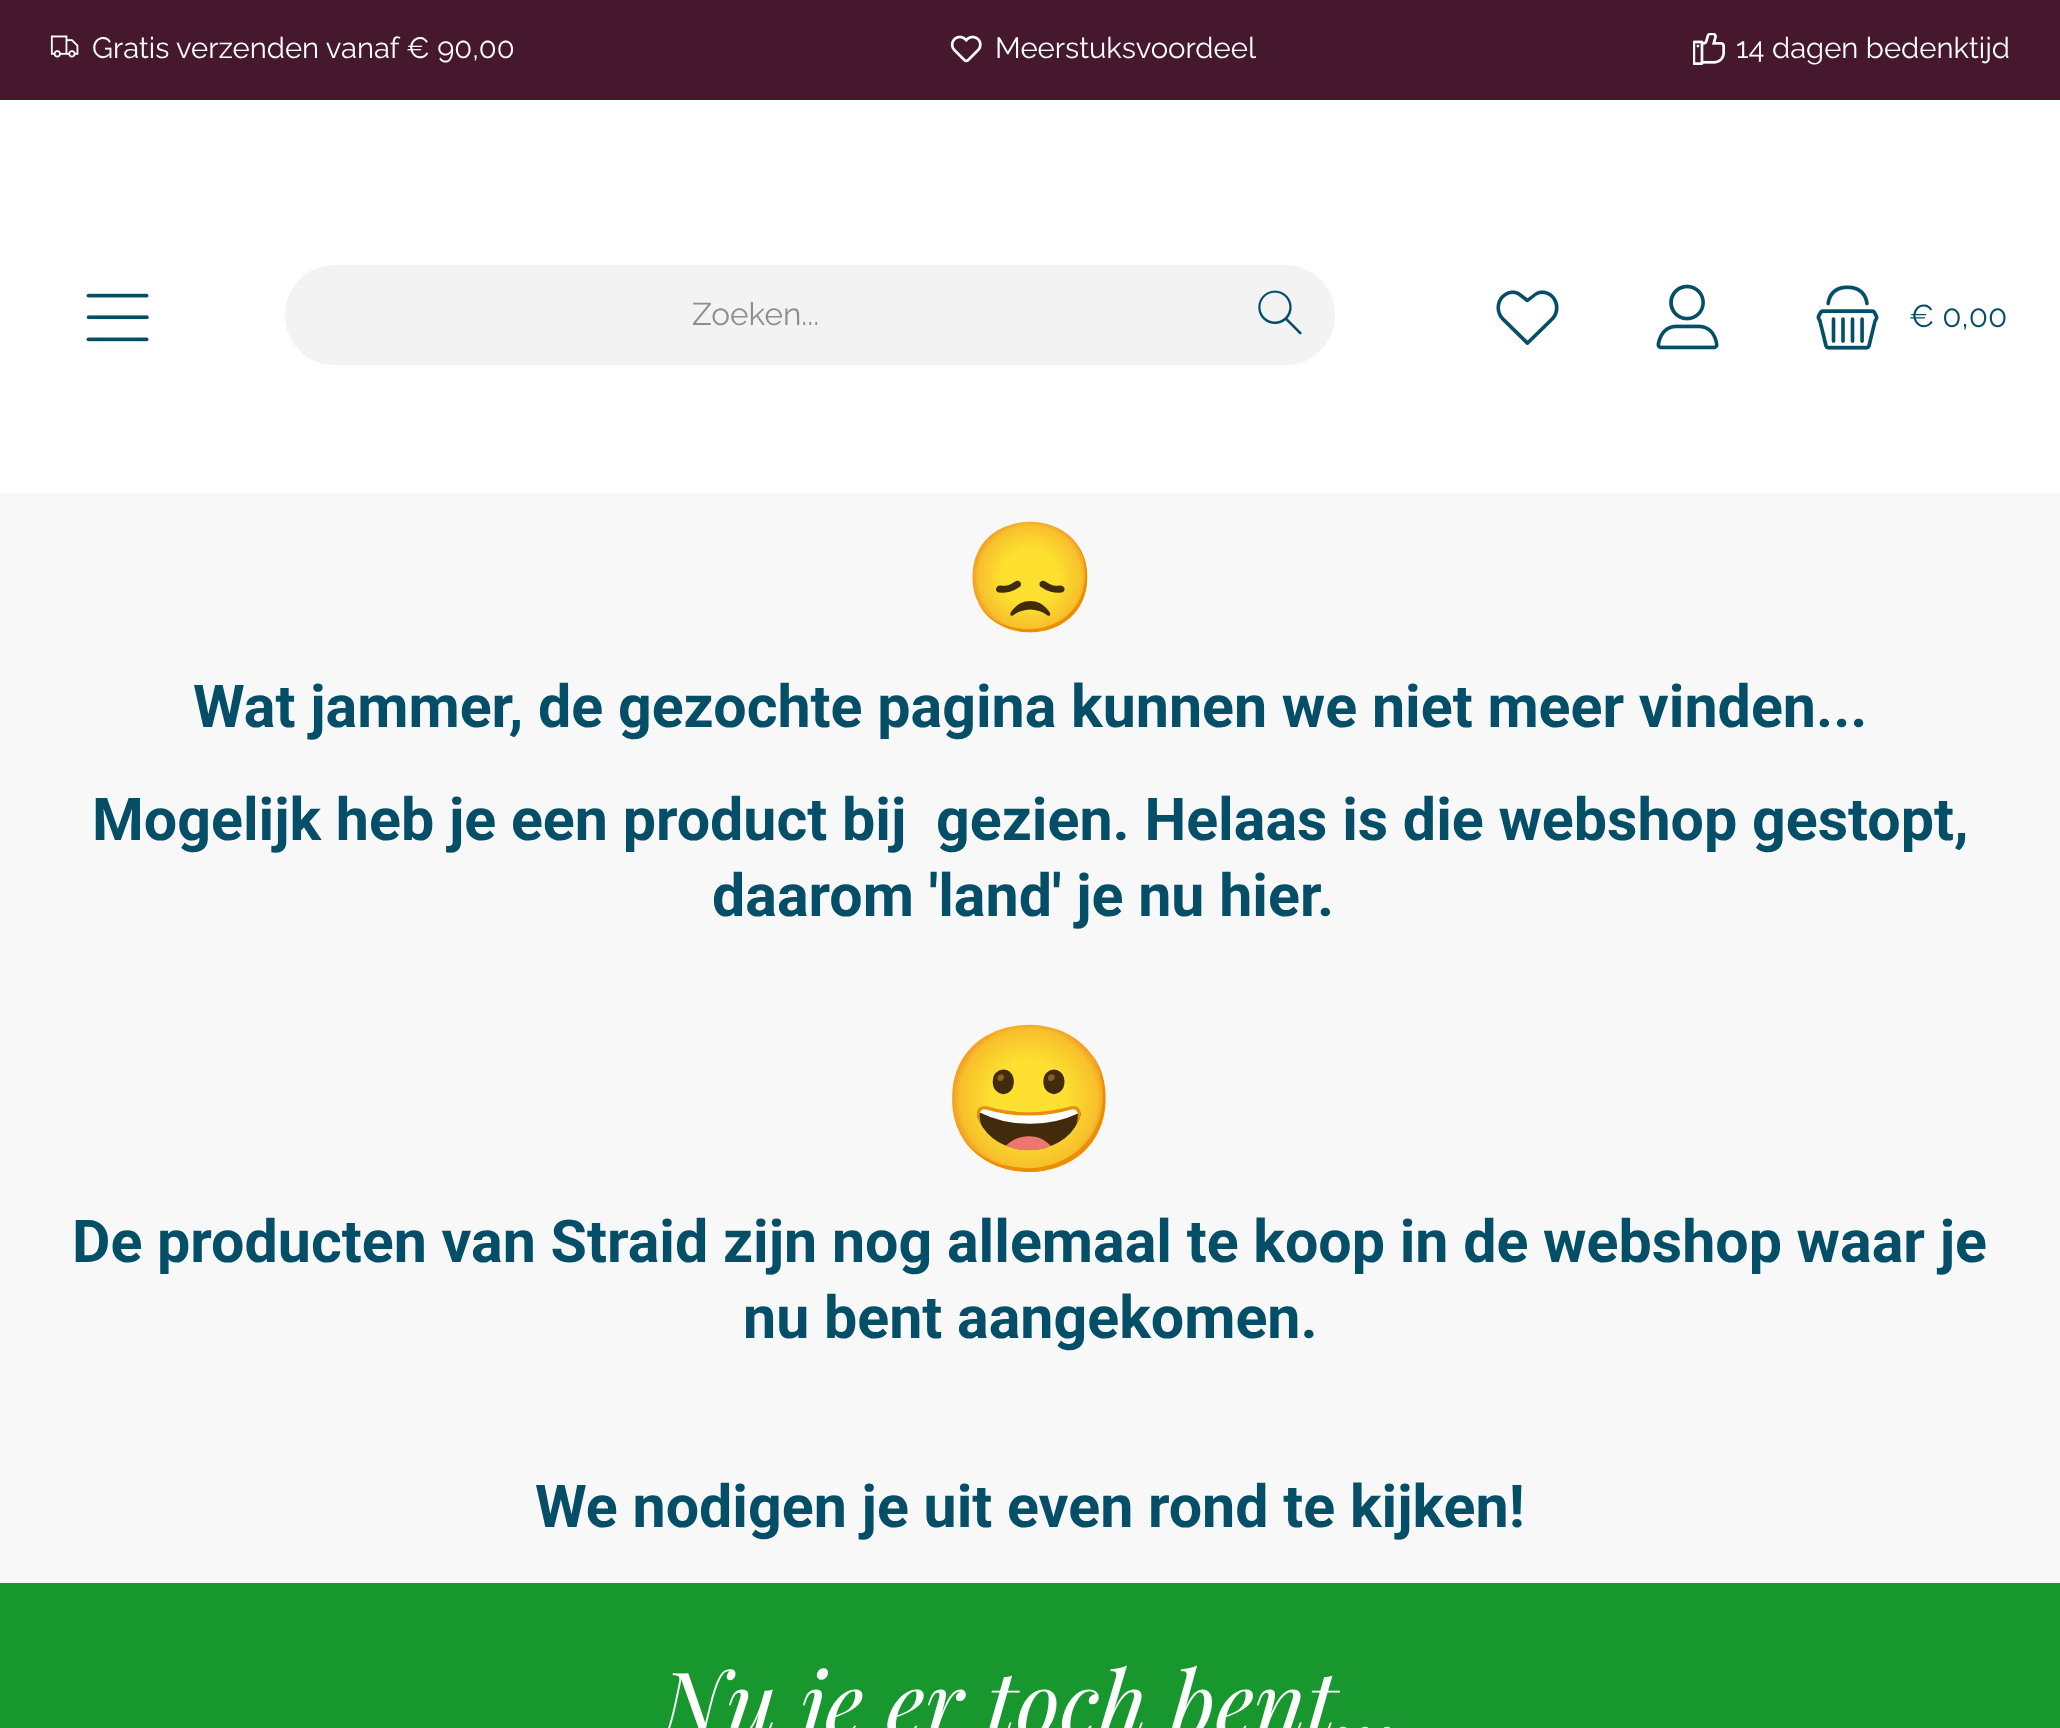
<svg xmlns="http://www.w3.org/2000/svg" width="2060" height="1728">
	<rect width="100%" height="100%" fill="#FFFFFF" />
	<rect x="0" y="0" width="2060" height="100" fill="#46182E" />
	<image x="50" y="35" width="29" height="23" href="assets/img1.png" />
	<text x="92" y="58" font-family="Raleway" font-size="29.25" font-weight="100" fill="#FFFFFF">Gratis verzenden vanaf € 90,00</text>
	<image x="950" y="35" width="32" height="28" href="assets/img2.png" />
	<text x="995" y="58" font-family="Raleway" font-size="29.25" font-weight="100" fill="#FFFFFF">Meerstuksvoordeel</text>
	<image x="1693" y="33" width="32" height="32" href="assets/img3.png" />
	<text x="1736" y="58" font-family="Raleway" font-size="29.25" font-weight="100" fill="#FFFFFF">14 dagen bedenktijd</text>
	<image x="86" y="293" width="63" height="49" href="assets/img4.png" />
	<path d="M335 266.5H1226.5V363.5H335C308 363.5 286.5 342 286.5 315C286.5 288 308 266.5 335 266.5Z" fill="#F3F3F3" stroke="#F3F3F3" stroke-width="3" />
	<text x="692" y="325" font-family="Raleway" font-size="31.5" font-weight="100" fill="#8E8E8E">Zoeken...</text>
	<path d="M1225 265H1285C1312.5 265 1335 287.5 1335 315C1335 342.5 1312.5 365 1285 365H1225Z" fill="#F3F3F3" />
	<path d="M1225 265H1285C1313 265 1335 287 1335 315C1335 343 1313 365 1285 365H1225ZM1225 268H1285C1311 268 1332 289 1332 315C1332 341 1311 362 1285 362H1225Z" fill="#F3F3F3" fill-rule="evenodd" />
	<image x="1258" y="290" width="44" height="45" href="assets/img5.png" />
	<image x="1496" y="290" width="63" height="55" href="assets/img6.png" />
	<image x="1656" y="284" width="63" height="66" href="assets/img7.png" />
	<image x="1816" y="285" width="63" height="65" href="assets/img8.png" />
	<text x="1909" y="327" font-family="Raleway" font-size="31.5" font-weight="100" fill="#044E68">€ 0,00</text>
	<rect x="0" y="493" width="2060" height="1090" fill="#F8F8F8" />
	<text x="963" y="615" font-family="Noto Color Emoji" font-size="108" font-weight="700" fill="#044E68">😞</text>
	<g font-family="Roboto" font-size="59.15" font-weight="700" fill="#044E68">
		<text x="193" y="727">Wat jammer, de gezochte pagina kunnen we niet meer vinden...</text>
		<text x="92" y="840">Mogelijk heb je een product bij</text>
		<text x="936" y="840">gezien. Helaas is die webshop gestopt,</text>
		<text x="712" y="916">daarom 'land' je nu hier.</text>
	</g>
	<text x="940" y="1149" font-family="Noto Color Emoji" font-size="144" font-weight="700" fill="#044E68">😀</text>
	<g font-family="Roboto" font-size="59.15" font-weight="700" fill="#044E68">
		<text x="72" y="1262">De producten van Straid zijn nog allemaal te koop in de webshop waar je</text>
		<text x="743" y="1338">nu bent aangekomen.</text>
		<text x="535" y="1527">We nodigen je uit even rond te kijken!</text>
	</g>
	<rect x="0" y="1583" width="2060" height="145" fill="#18972F" />
	<text x="657" y="1737" font-family="Playfair Display" font-size="90" font-style="italic" fill="#FFFFFF">Nu je er toch bent...</text>
</svg>
